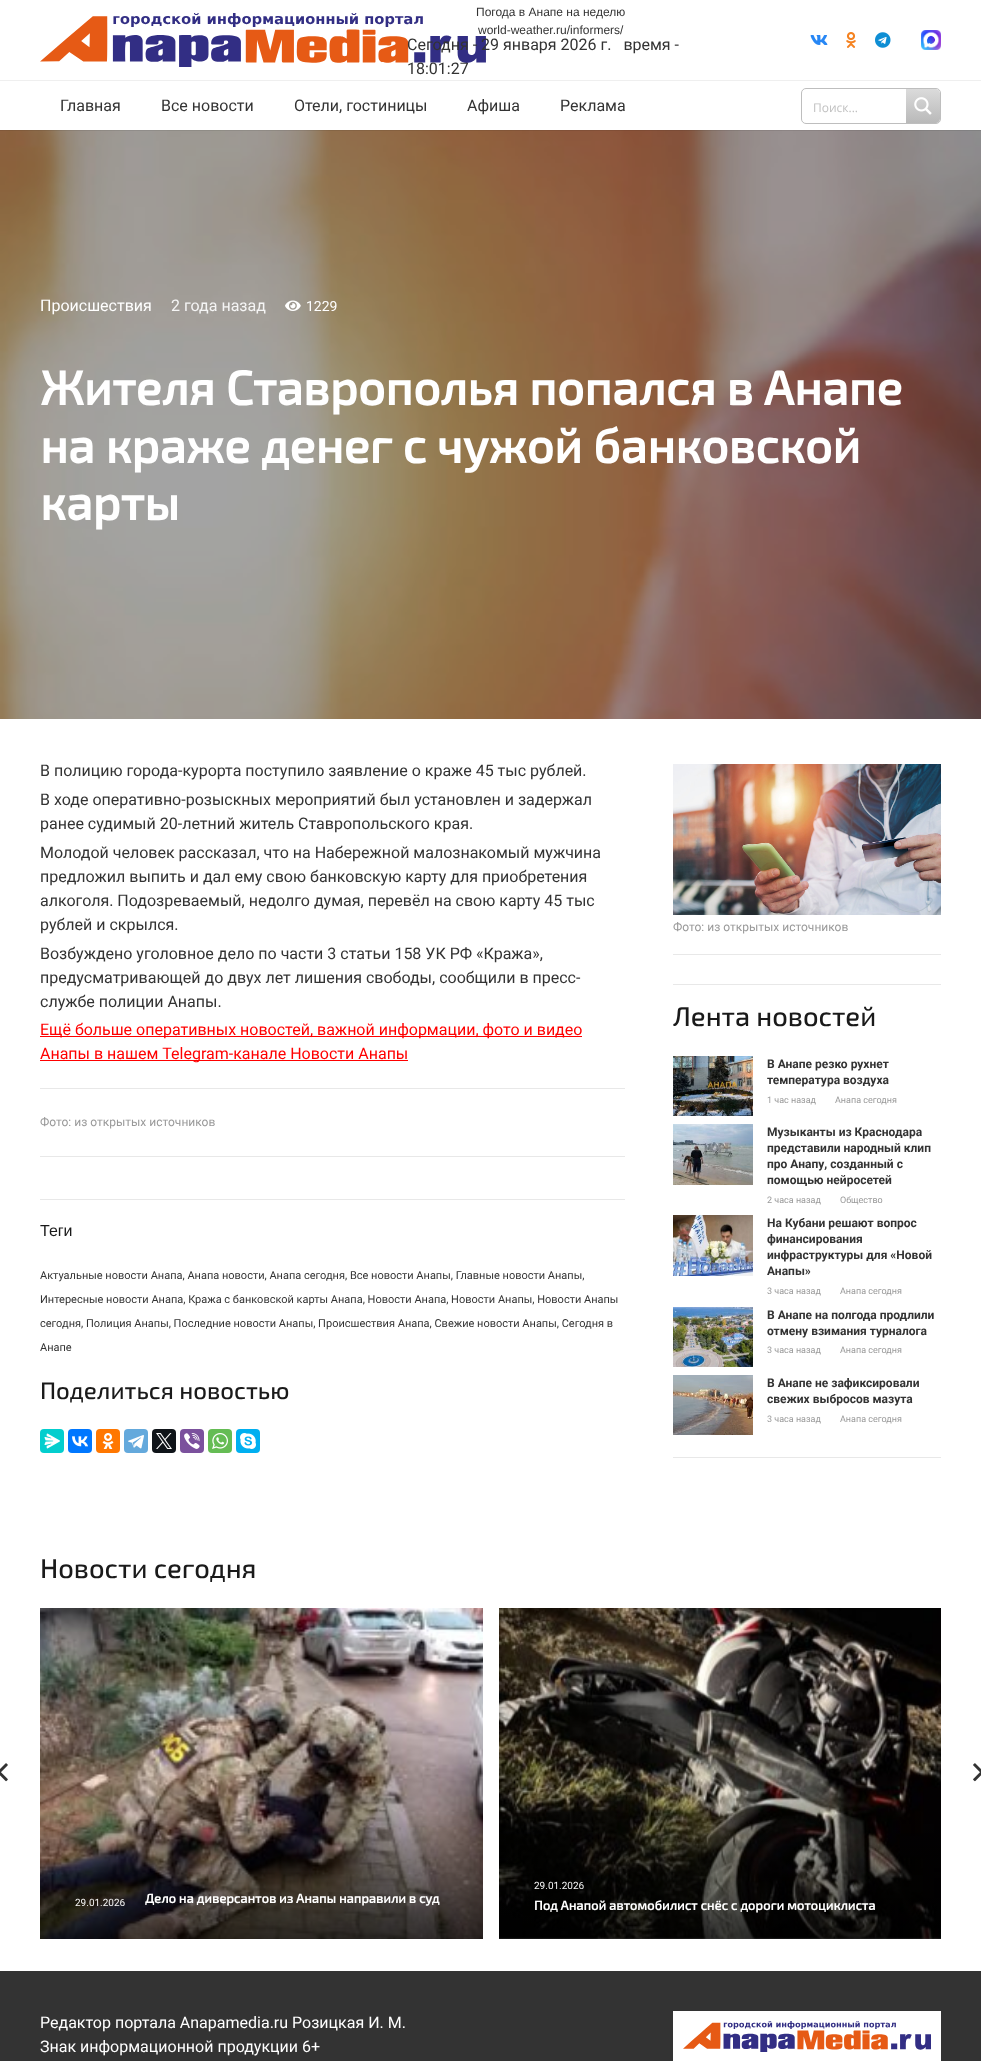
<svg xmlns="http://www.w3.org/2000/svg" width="981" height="2061">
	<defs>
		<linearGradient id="g1" gradientUnits="userSpaceOnUse" x1="923" y1="89" x2="923" y2="123"><stop offset="0" stop-color="#DBDBDB" /><stop offset="1" stop-color="#B9B9B9" /></linearGradient>
		<linearGradient id="g2" gradientUnits="userSpaceOnUse" x1="720" y1="1939" x2="720" y2="1794"><stop offset="0" stop-color="#000000" stop-opacity="0.7" /><stop offset="1" stop-color="#000000" stop-opacity="0" /></linearGradient>
	</defs>
	<rect width="100%" height="100%" fill="#FFFFFF" />
	<image x="40" y="13" width="446" height="54" href="assets/img1.png" />
	<g font-family="Liberation Sans" font-size="12" fill="#333333">
		<text x="476" y="16">Погода в Анапе на неделю</text>
		<text x="478" y="34">world-weather.ru/informers/</text>
	</g>
	<g font-family="Roboto" font-size="16" fill="#333333">
		<text x="407" y="50" xml:space="preserve">Сегодня - 29 января 2026 г.   время -</text>
		<text x="407" y="74">18:01:27</text>
	</g>
	<image x="810" y="35" width="18" height="10" href="assets/img2.png" />
	<image x="846" y="32" width="10" height="16" href="assets/img3.png" />
	<image x="875" y="32" width="16" height="16" href="assets/img4.png" />
	<image x="921" y="30" width="20" height="20" href="assets/img5.png" />
	<image x="0" y="130" width="981" height="589" href="assets/img7.png" />
	<rect x="0" y="130" width="981" height="1" fill="#000000" fill-opacity="0.08" />
	<rect x="0" y="80" width="981" height="1" fill="#EFEFEF" />
	<g font-family="Roboto" font-size="16" fill="#333333">
		<text x="60" y="111">Главная</text>
		<text x="161" y="111">Все новости</text>
		<text x="294" y="111">Отели, гостиницы</text>
		<text x="467" y="111">Афиша</text>
		<text x="560" y="111">Реклама</text>
	</g>
	<rect x="801.5" y="88.5" width="139" height="35" rx="4.5" fill="none" stroke="#BEBEBE" />
	<text x="813" y="112" font-family="Open Sans" font-size="12" fill="#C0C0C0">Поиск...</text>
	<path d="M906 89H936C938 89 940 91 940 93V119C940 121 938 123 936 123H906Z" fill="url(#g1)" />
	<image x="914" y="97" width="18" height="18" href="assets/img6.png" />
	<text x="40" y="311" font-family="Roboto" font-size="16" fill="#FFFFFF">Происшествия</text>
	<text x="171" y="311" font-family="Roboto" font-size="16" fill="#F5F5F5">2 года назад</text>
	<image x="285" y="300" width="16" height="11" href="assets/img8.png" />
	<text x="306" y="311" font-family="Roboto" font-size="14" fill="#FFFFFF">1229</text>
	<g font-family="'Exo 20'" font-size="48" font-weight="700" fill="#FFFFFF">
		<text x="40" y="405">Жителя Ставрополья попался в Анапе</text>
		<text x="40" y="463">на краже денег с чужой банковской</text>
		<text x="40" y="520">карты</text>
	</g>
	<g font-family="Roboto" font-size="16" fill="#333333">
		<text x="40" y="776">В полицию города-курорта поступило заявление о краже 45 тыс рублей.</text>
		<text x="40" y="805">В ходе оперативно-розыскных мероприятий был установлен и задержал</text>
		<text x="40" y="829">ранее судимый 20-летний житель Ставропольского края.</text>
		<text x="40" y="858">Молодой человек рассказал, что на Набережной малознакомый мужчина</text>
		<text x="40" y="882">предложил выпить и дал ему свою банковскую карту для приобретения</text>
		<text x="40" y="906">алкоголя. Подозреваемый, недолго думая, перевёл на свою карту 45 тыс</text>
		<text x="40" y="930">рублей и скрылся.</text>
		<text x="40" y="959">Возбуждено уголовное дело по части 3 статьи 158 УК РФ «Кража»,</text>
		<text x="40" y="983">предусматривающей до двух лет лишения свободы, сообщили в пресс-</text>
		<text x="40" y="1007">службе полиции Анапы.</text>
	</g>
	<rect x="40" y="1036" width="542" height="1" fill="#FF0000" />
	<text x="40" y="1035" font-family="Roboto" font-size="16" fill="#FF0000">Ещё больше оперативных новостей, важной информации, фото и видео</text>
	<rect x="40" y="1060" width="368" height="1" fill="#FF0000" />
	<text x="40" y="1059" font-family="Roboto" font-size="16" fill="#FF0000">Анапы в нашем Telegram-канале Новости Анапы</text>
	<rect x="40" y="1088" width="585" height="1" fill="#E8E8E8" />
	<text x="40" y="1126" font-family="Roboto" font-size="12" fill="#999999">Фото: из открытых источников</text>
	<rect x="40" y="1156" width="585" height="1" fill="#E8E8E8" />
	<rect x="40" y="1199" width="585" height="1" fill="#E8E8E8" />
	<text x="40" y="1236" font-family="Liberation Sans" font-size="16" fill="#1A1A1A">Теги</text>
	<g font-family="Roboto" font-size="11" fill="#333333">
		<text x="40" y="1279">Актуальные новости Анапа, Анапа новости, Анапа сегодня, Все новости Анапы, Главные новости Анапы,</text>
		<text x="40" y="1303">Интересные новости Анапа, Кража с банковской карты Анапа, Новости Анапа, Новости Анапы, Новости Анапы</text>
		<text x="40" y="1327">сегодня, Полиция Анапы, Последние новости Анапы, Происшествия Анапа, Свежие новости Анапы, Сегодня в</text>
		<text x="40" y="1351">Анапе</text>
	</g>
	<text x="40" y="1399" font-family="'Exo 20'" font-size="24" font-weight="500" fill="#1A1A1A">Поделиться новостью</text>
	<rect x="40" y="1429" width="24" height="24" rx="4" fill="#03CECE" />
	<image x="44" y="1433" width="16" height="16" href="assets/img9.png" />
	<rect x="68" y="1429" width="24" height="24" rx="4" fill="#0077FF" />
	<image x="72" y="1436" width="16" height="11" href="assets/img10.png" />
	<rect x="96" y="1429" width="24" height="24" rx="4" fill="#FF7700" />
	<image x="102" y="1433" width="12" height="16" href="assets/img11.png" />
	<rect x="124" y="1429" width="24" height="24" rx="4" fill="#64A9DC" />
	<image x="128" y="1435" width="16" height="14" href="assets/img12.png" />
	<rect x="152" y="1429" width="24" height="24" rx="4" fill="#0F1419" />
	<image x="156" y="1433" width="16" height="16" href="assets/img13.png" />
	<rect x="180" y="1429" width="24" height="24" rx="4" fill="#7B519D" />
	<image x="184" y="1433" width="16" height="16" href="assets/img14.png" />
	<rect x="208" y="1429" width="24" height="24" rx="4" fill="#65BC54" />
	<image x="212" y="1433" width="16" height="16" href="assets/img15.png" />
	<rect x="236" y="1429" width="24" height="24" rx="4" fill="#00AFF0" />
	<image x="240" y="1433" width="16" height="16" href="assets/img16.png" />
	<image x="673" y="764" width="268" height="151" href="assets/img17.png" />
	<text x="673" y="931" font-family="Roboto" font-size="12" fill="#999999">Фото: из открытых источников</text>
	<rect x="673" y="954" width="268" height="1" fill="#E8E8E8" />
	<rect x="673" y="984" width="268" height="1" fill="#E8E8E8" />
	<text x="673" y="1026" font-family="'Exo 20'" font-size="27.25" font-weight="500" fill="#1A1A1A">Лента новостей</text>
	<image x="673" y="1056" width="80" height="60" href="assets/img18.png" />
	<g font-family="Roboto" font-size="12" font-weight="700" fill="#333333">
		<text x="767" y="1068">В Анапе резко рухнет</text>
		<text x="767" y="1084">температура воздуха</text>
	</g>
	<g font-family="Roboto" font-size="9" fill="#999999">
		<text x="767" y="1103">1 час назад</text>
		<text x="835" y="1103">Анапа сегодня</text>
	</g>
	<image x="673" y="1124" width="80" height="61" href="assets/img19.png" />
	<g font-family="Roboto" font-size="12" font-weight="700" fill="#333333">
		<text x="767" y="1136">Музыканты из Краснодара</text>
		<text x="767" y="1152">представили народный клип</text>
		<text x="767" y="1168">про Анапу, созданный с</text>
		<text x="767" y="1184">помощью нейросетей</text>
	</g>
	<g font-family="Roboto" font-size="9" fill="#999999">
		<text x="767" y="1203">2 часа назад</text>
		<text x="840" y="1203">Общество</text>
	</g>
	<image x="673" y="1215" width="80" height="61" href="assets/img20.png" />
	<g font-family="Roboto" font-size="12" font-weight="700" fill="#333333">
		<text x="767" y="1227">На Кубани решают вопрос</text>
		<text x="767" y="1243">финансирования</text>
		<text x="767" y="1259">инфраструктуры для «Новой</text>
		<text x="767" y="1275">Анапы»</text>
	</g>
	<g font-family="Roboto" font-size="9" fill="#999999">
		<text x="767" y="1294">3 часа назад</text>
		<text x="840" y="1294">Анапа сегодня</text>
	</g>
	<image x="673" y="1307" width="80" height="60" href="assets/img21.png" />
	<g font-family="Roboto" font-size="12" font-weight="700" fill="#333333">
		<text x="767" y="1319">В Анапе на полгода продлили</text>
		<text x="767" y="1335">отмену взимания турналога</text>
	</g>
	<g font-family="Roboto" font-size="9" fill="#999999">
		<text x="767" y="1353">3 часа назад</text>
		<text x="840" y="1353">Анапа сегодня</text>
	</g>
	<image x="673" y="1375" width="80" height="60" href="assets/img22.png" />
	<g font-family="Roboto" font-size="12" font-weight="700" fill="#333333">
		<text x="767" y="1387">В Анапе не зафиксировали</text>
		<text x="767" y="1403">свежих выбросов мазута</text>
	</g>
	<g font-family="Roboto" font-size="9" fill="#999999">
		<text x="767" y="1422">3 часа назад</text>
		<text x="840" y="1422">Анапа сегодня</text>
	</g>
	<rect x="673" y="1457" width="268" height="1" fill="#E8E8E8" />
	<text x="40" y="1578" font-family="'Exo 20'" font-size="27.25" font-weight="500" fill="#1A1A1A">Новости сегодня</text>
	<image x="0" y="1763" width="8" height="19" href="assets/img23.png" />
	<image x="973" y="1763" width="8" height="19" href="assets/img24.png" />
	<image x="40" y="1608" width="443" height="331" href="assets/img25.png" />
	<text x="75" y="1906" font-family="Roboto" font-size="10" fill="#F5F5F5">29.01.2026</text>
	<text x="145" y="1903" font-family="'Exo 20'" font-size="13" font-weight="700" fill="#FFFFFF">Дело на диверсантов из Анапы направили в суд</text>
	<image x="499" y="1608" width="442" height="331" href="assets/img26.png" />
	<rect x="499" y="1798" width="442" height="141" fill="url(#g2)" />
	<text x="534" y="1889" font-family="Roboto" font-size="10" fill="#F5F5F5">29.01.2026</text>
	<text x="534" y="1910" font-family="'Exo 20'" font-size="13" font-weight="700" fill="#FFFFFF">Под Анапой автомобилист снёс с дороги мотоциклиста</text>
	<rect x="0" y="1971" width="981" height="90" fill="#333333" />
	<g font-family="Roboto" font-size="16" fill="#FFFFFF">
		<text x="40" y="2028">Редактор портала Anapamedia.ru Розицкая И. М.</text>
		<text x="40" y="2052">Знак информационной продукции 6+</text>
	</g>
	<rect x="673" y="2011" width="268" height="50" fill="#FFFFFF" />
	<image x="683" y="2021" width="248" height="31" href="assets/img27.png" />
</svg>
